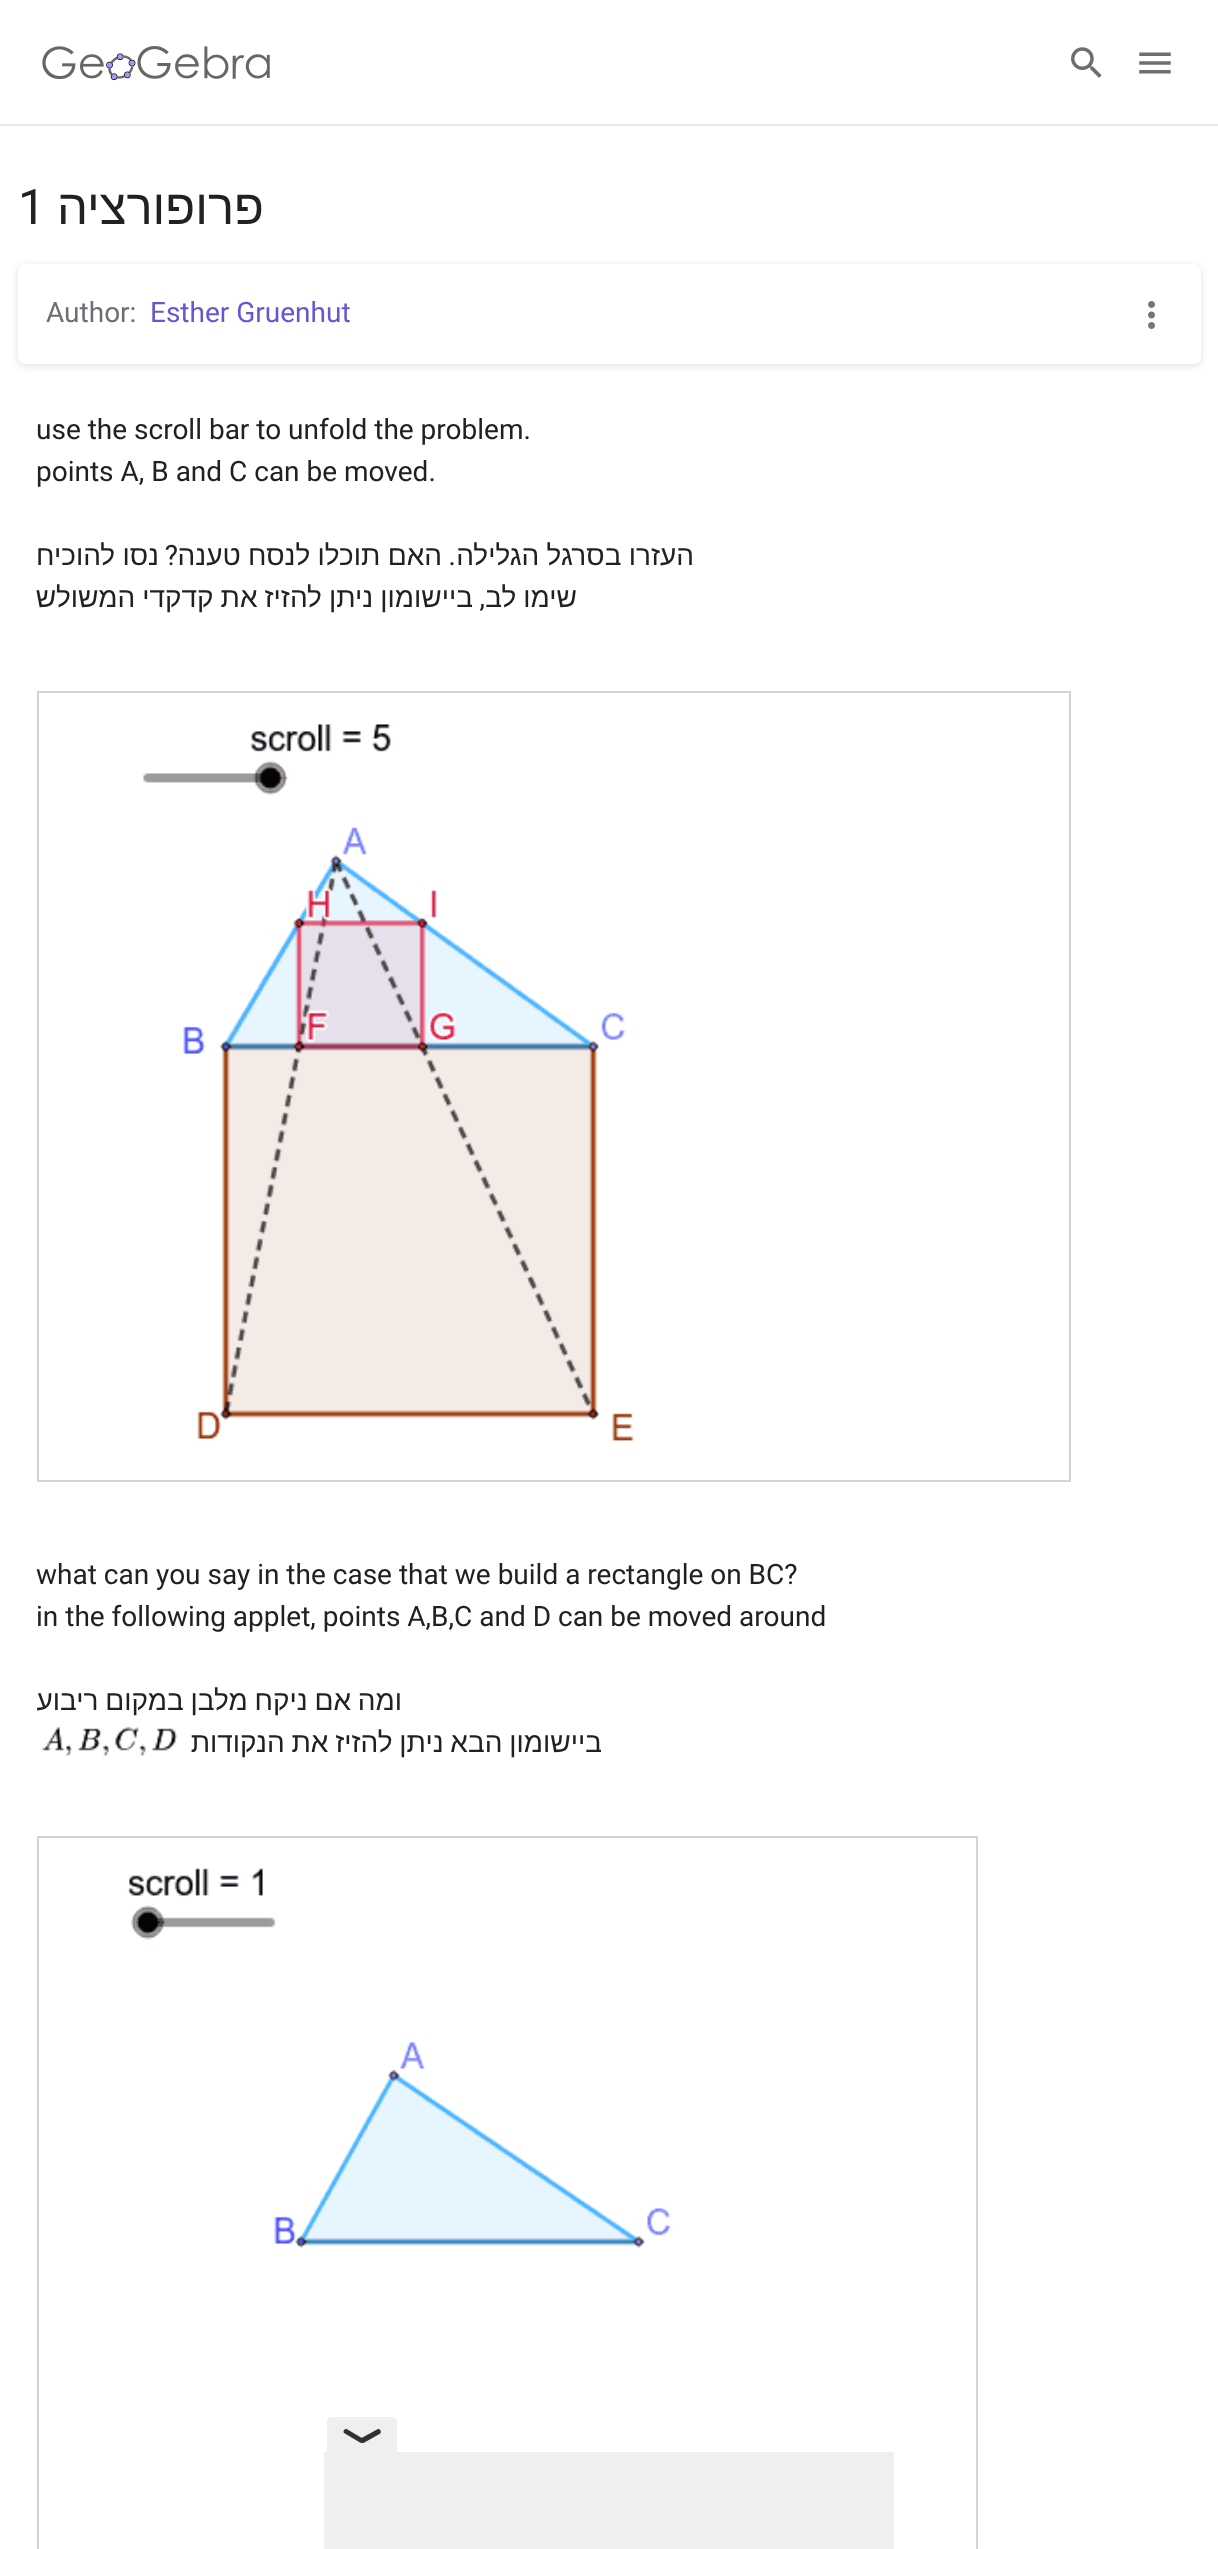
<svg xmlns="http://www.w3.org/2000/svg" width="1218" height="2549">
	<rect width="100%" height="100%" fill="#FFFFFF" />
	<rect x="0" y="124" width="1218" height="2" fill="#E6E6EB" />
	<image x="42" y="46" width="228" height="35" href="assets/img1.png" />
	<image x="1071" y="47" width="31" height="31" href="assets/img2.png" />
	<image x="1139" y="52" width="32" height="22" href="assets/img3.png" />
	<text x="18" y="224" font-family="Roboto" font-size="49" fill="#212121">1</text>
	<text x="264" y="224" font-family="Liberation Sans" font-size="49" direction="rtl" fill="#212121">פרופורציה</text>
	<rect x="18" y="266" width="1183" height="100" rx="7" fill="#1C1C1F" fill-opacity="0.14" filter="blur(3.5px)" />
	<rect x="18" y="264" width="1183" height="100" rx="7" fill="#FFFFFF" />
	<text x="46" y="322" font-family="Roboto" font-size="28" fill="#6E6D73">Author:</text>
	<text x="150" y="322" font-family="Roboto" font-size="28" fill="#6557D2">Esther Gruenhut</text>
	<image x="1148" y="301" width="7" height="28" href="assets/img4.png" />
	<g font-family="Roboto" font-size="28" fill="#212121">
		<text x="36" y="439">use the scroll bar to unfold the problem.</text>
		<text x="36" y="481">points A, B and C can be moved.</text>
	</g>
	<text x="159" y="565" word-spacing="-0.5" font-family="Liberation Sans" font-size="28" direction="rtl" fill="#212121">נסו להוכיח</text>
	<text x="178" y="565" font-family="Roboto" font-size="28" direction="rtl" fill="#212121">?</text>
	<text x="442" y="565" word-spacing="-0.5" font-family="Liberation Sans" font-size="28" direction="rtl" fill="#212121">האם תוכלו לנסח טענה</text>
	<text x="456" y="565" font-family="Roboto" font-size="28" direction="rtl" fill="#212121">.</text>
	<g font-family="Liberation Sans" font-size="28" direction="rtl" fill="#212121">
		<text x="694" y="565" word-spacing="-0.5">העזרו בסרגל הגלילה</text>
		<text x="473" y="607" word-spacing="-0.75">ביישומון ניתן להזיז את קדקדי המשולש</text>
	</g>
	<text x="485" y="607" font-family="Roboto" font-size="28" direction="rtl" fill="#212121">,</text>
	<text x="577" y="607" word-spacing="-0.75" font-family="Liberation Sans" font-size="28" direction="rtl" fill="#212121">שימו לב</text>
	<image x="143" y="724" width="491" height="717" href="assets/img5.png" />
	<rect x="38" y="692" width="1032" height="789" fill="none" stroke="#D3D3D3" stroke-width="2" />
	<g font-family="Roboto" font-size="28" fill="#212121">
		<text x="36" y="1584">what can you say in the case that we build a rectangle on BC?</text>
		<text x="36" y="1626">in the following applet, points A,B,C and D can be moved around</text>
	</g>
	<text x="402" y="1710" word-spacing="-1" font-family="Liberation Sans" font-size="28" direction="rtl" fill="#212121">ומה אם ניקח מלבן במקום ריבוע</text>
	<image x="41" y="1726" width="137" height="30" href="assets/img6.png" />
	<text x="602" y="1752" word-spacing="-1" font-family="Liberation Sans" font-size="28" direction="rtl" fill="#212121">ביישומון הבא ניתן להזיז את הנקודות</text>
	<image x="127" y="1868" width="544" height="380" href="assets/img7.png" />
	<rect x="38" y="1837" width="939" height="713" fill="none" stroke="#D3D3D3" stroke-width="2" />
	<path d="M331 2417H393C395 2417 397 2419 397 2421V2452H327V2421C327 2419 329 2417 331 2417Z" fill="#EFEFEF" />
	<path d="M347.5 2429.5L363.5 2439C365.5 2441 362.5 2444 360 2442.5L344 2433C342.5 2431 345 2428 347.5 2429.5Z" fill="#313131" />
	<path d="M361.5 2438L378 2429C380.5 2428.5 382 2432.5 379.5 2434L363.5 2443C360.5 2443.5 359.5 2439.5 361.5 2438Z" fill="#313131" />
	<rect x="324" y="2452" width="570" height="97" fill="#EFEFEF" />
</svg>
